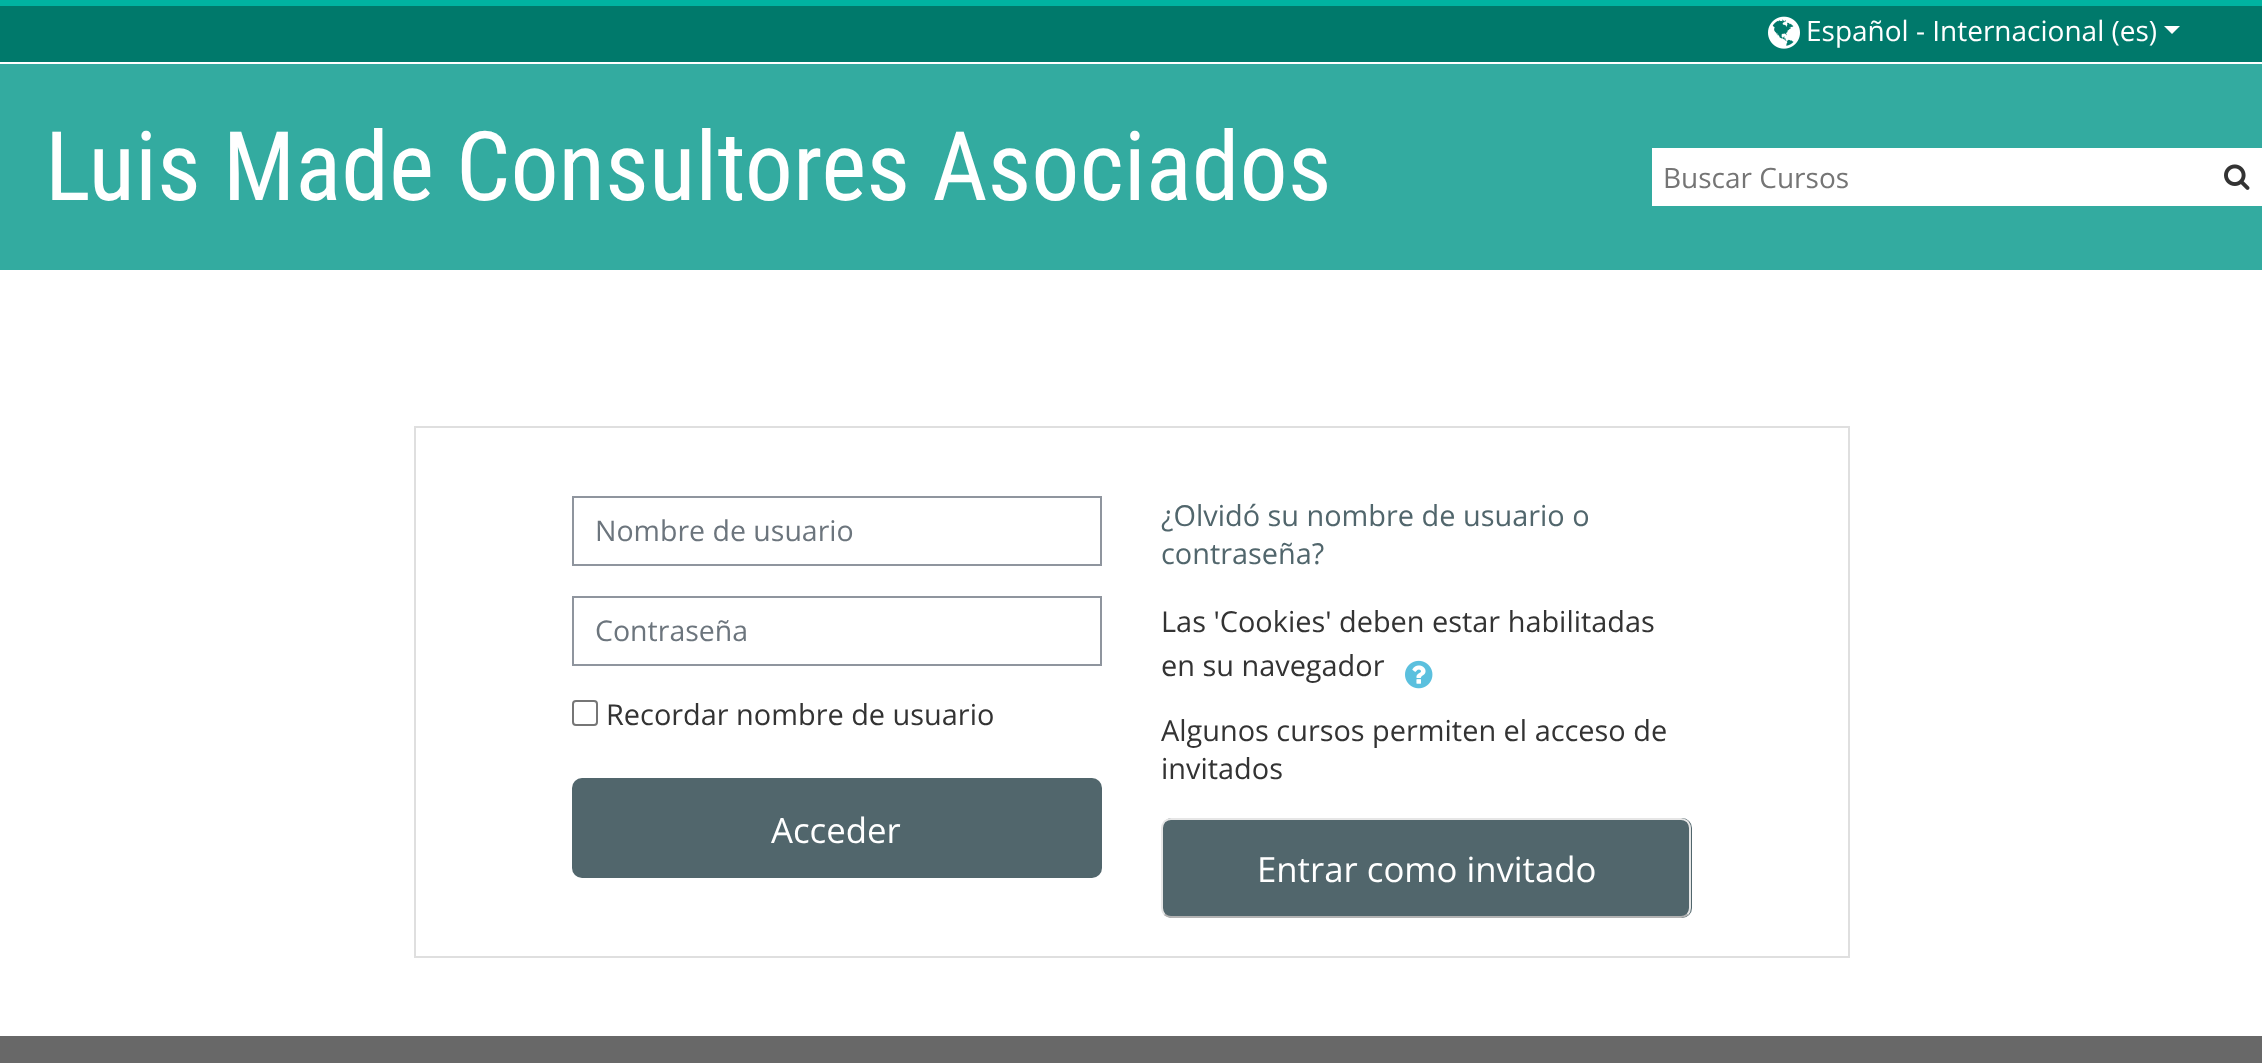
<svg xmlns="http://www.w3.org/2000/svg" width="2262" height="1063">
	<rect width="100%" height="100%" fill="#FFFFFF" />
	<rect x="0" y="0" width="2262" height="6" fill="#00B3A1" />
	<rect x="0" y="64" width="2262" height="206" fill="#33ABA0" />
	<rect x="0" y="6" width="2262" height="56" fill="#00796B" />
	<image x="1768" y="16" width="32" height="33" href="assets/img1.png" />
	<text x="1806" y="41" font-family="Open Sans" font-size="28" fill="#FFFFFF">Español - Internacional (es)</text>
	<path d="M2164 26H2180L2172 34Z" fill="#FFFFFF" />
	<text x="45" y="200" font-family="Roboto Condensed" font-size="96" fill="#FFFFFF">Luis Made Consultores Asociados</text>
	<rect x="1652" y="148" width="610" height="58" fill="#FFFFFF" />
	<text x="1663" y="188" font-family="Open Sans" font-size="28" fill="#757575">Buscar Cursos</text>
	<image x="2224" y="164" width="26" height="26" href="assets/img2.png" />
	<rect x="415" y="427" width="1434" height="530" fill="none" stroke="#DFDFDF" stroke-width="2" />
	<rect x="573" y="497" width="528" height="68" fill="none" stroke="#8F959E" stroke-width="2" />
	<text x="595" y="541" font-family="Open Sans" font-size="28.5" fill="#6C757D">Nombre de usuario</text>
	<rect x="573" y="597" width="528" height="68" fill="none" stroke="#8F959E" stroke-width="2" />
	<text x="595" y="641" font-family="Open Sans" font-size="28.5" fill="#6C757D">Contraseña</text>
	<rect x="573" y="701" width="24" height="24" rx="3" fill="none" stroke="#767676" stroke-width="2" />
	<text x="606" y="725" font-family="Open Sans" font-size="28.9" fill="#333333">Recordar nombre de usuario</text>
	<rect x="572" y="778" width="530" height="100" rx="10" fill="#51666C" />
	<text x="771" y="843" font-family="Open Sans" font-size="34.75" fill="#FFFFFF">Acceder</text>
	<g font-family="Open Sans" font-size="28.9" fill="#51666C">
		<text x="1161" y="526">¿Olvidó su nombre de usuario o</text>
		<text x="1161" y="564">contraseña?</text>
	</g>
	<g font-family="Open Sans" font-size="28.9" fill="#333333">
		<text x="1161" y="632">Las 'Cookies' deben estar habilitadas</text>
		<text x="1161" y="676">en su navegador</text>
	</g>
	<image x="1405" y="660" width="28" height="29" href="assets/img3.png" />
	<g font-family="Open Sans" font-size="28.9" fill="#333333">
		<text x="1161" y="741">Algunos cursos permiten el acceso de</text>
		<text x="1161" y="779">invitados</text>
	</g>
	<rect x="1162" y="818" width="530" height="100" rx="10" fill="#51666C" />
	<path d="M1687.5 914.5C1685.5 916 1683.5 917 1681 917H1171C1168.5 917 1166.5 916 1164.5 914.5" fill="none" stroke="#B3B3B3" stroke-width="2" />
	<path d="M1164.5 914.5C1163 912.5 1162 910.5 1162 908V828C1162 825.5 1163 823.5 1164.5 821.5C1166.5 820 1168.5 819 1171 819H1681C1683.5 819 1685.5 820 1687.5 821.5C1689 823.5 1690 825.5 1690 828V908C1690 910.5 1689 912.5 1687.5 914.5" fill="none" stroke="#E6E6E6" stroke-width="2" />
	<text x="1257" y="882" font-family="Open Sans" font-size="34.75" fill="#FFFFFF">Entrar como invitado</text>
	<rect x="0" y="1036" width="2262" height="27" fill="#686868" />
</svg>
